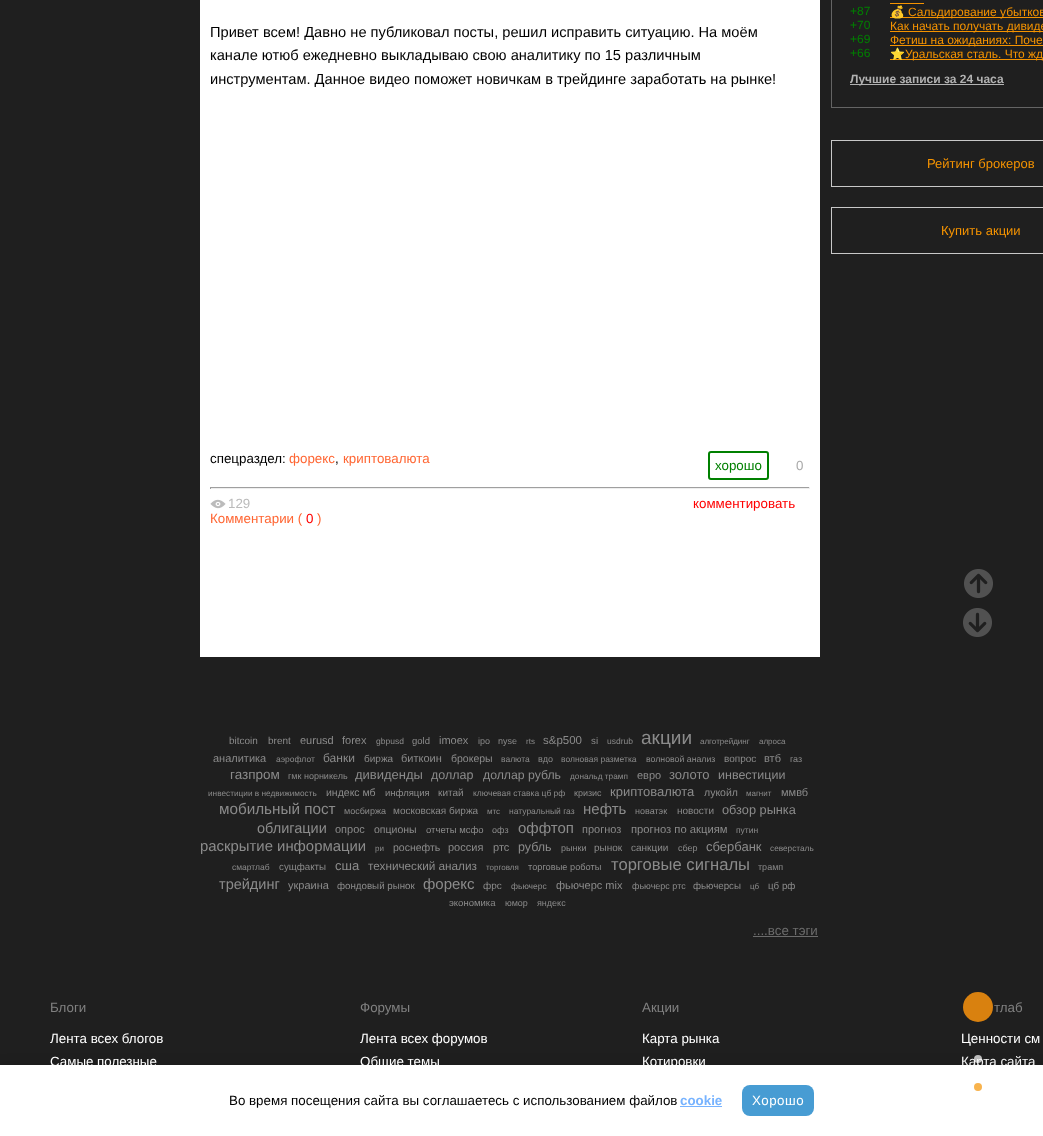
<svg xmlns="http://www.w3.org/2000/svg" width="1043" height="1136">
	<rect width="100%" height="100%" fill="#1F1F1F" />
	<rect x="200" y="0" width="620" height="657" fill="#FFFFFF" />
	<g font-family="Liberation Sans" font-size="14.65" fill="#000000">
		<text x="210" y="37">Привет всем! Давно не публиковал посты, решил исправить ситуацию. На моём</text>
		<text x="210" y="60">канале ютюб ежедневно выкладываю свою аналитику по 15 различным</text>
		<text x="210" y="84">инструментам. Данное видео поможет новичкам в трейдинге заработать на рынке!</text>
	</g>
	<text x="210" y="463" font-family="Liberation Sans" font-size="13.35" fill="#000000">спецраздел:</text>
	<text x="289" y="463" font-family="Liberation Sans" font-size="13.35" fill="#FF6633">форекс</text>
	<text x="335" y="463" font-family="Liberation Sans" font-size="13.35" fill="#000000">,</text>
	<text x="343" y="463" font-family="Liberation Sans" font-size="13.35" fill="#FF6633">криптовалюта</text>
	<rect x="709" y="452" width="59" height="27" rx="2" fill="none" stroke="#008000" stroke-width="2" />
	<text x="715" y="470" font-family="Liberation Sans" font-size="13.35" fill="#008000">хорошо</text>
	<text x="796" y="470" font-family="Liberation Sans" font-size="13.35" fill="#AAAAAA">0</text>
	<rect x="210" y="487" width="600" height="1" fill="#9F9F9F" />
	<rect x="809" y="487" width="1" height="2" fill="#EEEEEE" />
	<rect x="210" y="488" width="600" height="1" fill="#EEEEEE" />
	<rect x="210" y="487" width="1" height="2" fill="#9F9F9F" />
	<image x="210" y="499" width="16" height="10" href="assets/img1.png" />
	<text x="228" y="508" font-family="Liberation Sans" font-size="13.35" fill="#BBBBBB">129</text>
	<text x="693" y="508" font-family="Liberation Sans" font-size="13.35" fill="#FF0000">комментировать</text>
	<text x="210" y="523" font-family="Liberation Sans" font-size="13.35" fill="#FF6633">Комментарии (</text>
	<text x="306" y="523" font-family="Liberation Sans" font-size="13.35" fill="#FF0000">0</text>
	<text x="317" y="523" font-family="Liberation Sans" font-size="13.35" fill="#FF6633">)</text>
	<rect x="831.5" y="-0.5" width="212" height="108" fill="none" stroke="#646464" />
	<rect x="890" y="3" width="34" height="1" fill="#F59300" />
	<text x="850" y="15" font-family="Liberation Sans" font-size="12" fill="#008000">+87</text>
	<rect x="890" y="17" width="153" height="1" fill="#F59300" />
	<text x="890" y="16" font-family="Noto Color Emoji" font-size="12" fill="#F59300">💰</text>
	<text x="908" y="16" font-family="Liberation Sans" font-size="12" fill="#F59300">Сальдирование убытков</text>
	<text x="850" y="29" font-family="Liberation Sans" font-size="12" fill="#008000">+70</text>
	<rect x="890" y="31" width="153" height="1" fill="#F59300" />
	<text x="890" y="30" font-family="Liberation Sans" font-size="12" fill="#F59300">Как начать получать дивиде</text>
	<text x="850" y="43" font-family="Liberation Sans" font-size="12" fill="#008000">+69</text>
	<rect x="890" y="45" width="153" height="1" fill="#F59300" />
	<text x="890" y="44" font-family="Liberation Sans" font-size="12" fill="#F59300">Фетиш на ожиданиях: Поче</text>
	<text x="850" y="57" font-family="Liberation Sans" font-size="12" fill="#008000">+66</text>
	<rect x="890" y="59" width="153" height="1" fill="#F59300" />
	<text x="890" y="58" font-family="Noto Color Emoji" font-size="12" fill="#F59300">⭐️</text>
	<text x="905" y="58" font-family="Liberation Sans" font-size="12" fill="#F59300">Уральская сталь. Что жд</text>
	<rect x="850" y="84" width="154" height="1" fill="#B2B2B2" />
	<text x="850" y="83" font-family="Liberation Sans" font-size="12" font-weight="700" fill="#B2B2B2">Лучшие записи за 24 часа</text>
	<rect x="831.5" y="140.5" width="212" height="46" fill="none" stroke="#C8C8C8" />
	<text x="927" y="168" font-family="Liberation Sans" font-size="13" fill="#F59300">Рейтинг брокеров</text>
	<rect x="831.5" y="207.5" width="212" height="46" fill="none" stroke="#C8C8C8" />
	<text x="941" y="235" font-family="Liberation Sans" font-size="13" fill="#F59300">Купить акции</text>
	<g font-family="Liberation Sans" font-size="10" fill="#8B8B8B">
		<text x="229" y="744">bitcoin</text>
		<text x="268" y="744">brent</text>
	</g>
	<g font-family="Liberation Sans" font-size="11" fill="#8B8B8B">
		<text x="300" y="744">eurusd</text>
		<text x="342" y="744">forex</text>
	</g>
	<text x="376" y="744" font-family="Liberation Sans" font-size="8.5" fill="#8B8B8B">gbpusd</text>
	<text x="412" y="744" font-family="Liberation Sans" font-size="9.5" fill="#8B8B8B">gold</text>
	<text x="439" y="744" font-family="Liberation Sans" font-size="11" fill="#8B8B8B">imoex</text>
	<g font-family="Liberation Sans" font-size="9" fill="#8B8B8B">
		<text x="478" y="744">ipo</text>
		<text x="498" y="744">nyse</text>
	</g>
	<text x="526" y="744" font-family="Liberation Sans" font-size="8" fill="#8B8B8B">rts</text>
	<text x="543" y="744" font-family="Liberation Sans" font-size="11.5" fill="#8B8B8B">s&amp;p500</text>
	<text x="591" y="744" font-family="Liberation Sans" font-size="9.75" fill="#8B8B8B">si</text>
	<text x="607" y="744" font-family="Liberation Sans" font-size="8.5" fill="#8B8B8B">usdrub</text>
	<text x="641" y="744" font-family="Liberation Sans" font-size="19" fill="#8B8B8B">акции</text>
	<g font-family="Liberation Sans" font-size="8" fill="#8B8B8B">
		<text x="700" y="744">алготрейдинг</text>
		<text x="759" y="744">алроса</text>
	</g>
	<text x="213" y="762" font-family="Liberation Sans" font-size="11" fill="#8B8B8B">аналитика</text>
	<text x="276" y="762" font-family="Liberation Sans" font-size="8.5" fill="#8B8B8B">аэрофлот</text>
	<text x="323" y="762" font-family="Liberation Sans" font-size="12" fill="#8B8B8B">банки</text>
	<text x="364" y="762" font-family="Liberation Sans" font-size="10" fill="#8B8B8B">биржа</text>
	<text x="401" y="762" font-family="Liberation Sans" font-size="11" fill="#8B8B8B">биткоин</text>
	<text x="451" y="762" font-family="Liberation Sans" font-size="10.5" fill="#8B8B8B">брокеры</text>
	<text x="501" y="762" font-family="Liberation Sans" font-size="8.5" fill="#8B8B8B">валюта</text>
	<text x="538" y="762" font-family="Liberation Sans" font-size="9" fill="#8B8B8B">вдо</text>
	<text x="561" y="762" font-family="Liberation Sans" font-size="8.5" fill="#8B8B8B">волновая разметка</text>
	<text x="646" y="762" font-family="Liberation Sans" font-size="8.75" fill="#8B8B8B">волновой анализ</text>
	<text x="724" y="762" font-family="Liberation Sans" font-size="10" fill="#8B8B8B">вопрос</text>
	<text x="764" y="762" font-family="Liberation Sans" font-size="11" fill="#8B8B8B">втб</text>
	<text x="790" y="762" font-family="Liberation Sans" font-size="9" fill="#8B8B8B">газ</text>
	<text x="230" y="779" font-family="Liberation Sans" font-size="13.5" fill="#8B8B8B">газпром</text>
	<text x="288" y="779" font-family="Liberation Sans" font-size="9" fill="#8B8B8B">гмк норникель</text>
	<text x="355" y="779" font-family="Liberation Sans" font-size="13" fill="#8B8B8B">дивиденды</text>
	<text x="431" y="779" font-family="Liberation Sans" font-size="12.5" fill="#8B8B8B">доллар</text>
	<text x="483" y="779" font-family="Liberation Sans" font-size="12.25" fill="#8B8B8B">доллар рубль</text>
	<text x="570" y="779" font-family="Liberation Sans" font-size="8.25" fill="#8B8B8B">дональд трамп</text>
	<text x="637" y="779" font-family="Liberation Sans" font-size="11" fill="#8B8B8B">евро</text>
	<text x="669" y="779" font-family="Liberation Sans" font-size="13" fill="#8B8B8B">золото</text>
	<text x="718" y="779" font-family="Liberation Sans" font-size="12.5" fill="#8B8B8B">инвестиции</text>
	<text x="208" y="796" font-family="Liberation Sans" font-size="8.25" fill="#8B8B8B">инвестиции в недвижимость</text>
	<text x="326" y="796" font-family="Liberation Sans" font-size="10.5" fill="#8B8B8B">индекс мб</text>
	<text x="385" y="796" font-family="Liberation Sans" font-size="9.5" fill="#8B8B8B">инфляция</text>
	<text x="438" y="796" font-family="Liberation Sans" font-size="10" fill="#8B8B8B">китай</text>
	<text x="473" y="796" font-family="Liberation Sans" font-size="8.5" fill="#8B8B8B">ключевая ставка цб рф</text>
	<text x="574" y="796" font-family="Liberation Sans" font-size="9" fill="#8B8B8B">кризис</text>
	<text x="610" y="796" font-family="Liberation Sans" font-size="13" fill="#8B8B8B">криптовалюта</text>
	<text x="704" y="796" font-family="Liberation Sans" font-size="10.5" fill="#8B8B8B">лукойл</text>
	<text x="746" y="796" font-family="Liberation Sans" font-size="8" fill="#8B8B8B">магнит</text>
	<text x="781" y="796" font-family="Liberation Sans" font-size="11" fill="#8B8B8B">ммвб</text>
	<text x="219" y="814" font-family="Liberation Sans" font-size="15.25" fill="#8B8B8B">мобильный пост</text>
	<text x="344" y="814" font-family="Liberation Sans" font-size="9" fill="#8B8B8B">мосбиржа</text>
	<text x="393" y="814" font-family="Liberation Sans" font-size="10" fill="#8B8B8B">московская биржа</text>
	<text x="487" y="814" font-family="Liberation Sans" font-size="8" fill="#8B8B8B">мтс</text>
	<text x="509" y="814" font-family="Liberation Sans" font-size="8.5" fill="#8B8B8B">натуральный газ</text>
	<text x="583" y="814" font-family="Liberation Sans" font-size="15" fill="#8B8B8B">нефть</text>
	<text x="635" y="814" font-family="Liberation Sans" font-size="9" fill="#8B8B8B">новатэк</text>
	<text x="677" y="814" font-family="Liberation Sans" font-size="10" fill="#8B8B8B">новости</text>
	<text x="722" y="814" font-family="Liberation Sans" font-size="12.75" fill="#8B8B8B">обзор рынка</text>
	<text x="257" y="833" font-family="Liberation Sans" font-size="14.5" fill="#8B8B8B">облигации</text>
	<text x="335" y="833" font-family="Liberation Sans" font-size="11" fill="#8B8B8B">опрос</text>
	<text x="374" y="833" font-family="Liberation Sans" font-size="10.5" fill="#8B8B8B">опционы</text>
	<text x="426" y="833" font-family="Liberation Sans" font-size="9.5" fill="#8B8B8B">отчеты мсфо</text>
	<text x="492" y="833" font-family="Liberation Sans" font-size="9" fill="#8B8B8B">офз</text>
	<text x="518" y="833" font-family="Liberation Sans" font-size="15" fill="#8B8B8B">оффтоп</text>
	<text x="582" y="833" font-family="Liberation Sans" font-size="11" fill="#8B8B8B">прогноз</text>
	<text x="631" y="833" font-family="Liberation Sans" font-size="11.25" fill="#8B8B8B">прогноз по акциям</text>
	<text x="736" y="833" font-family="Liberation Sans" font-size="8.5" fill="#8B8B8B">путин</text>
	<text x="200" y="851" font-family="Liberation Sans" font-size="14.9" fill="#8B8B8B">раскрытие информации</text>
	<text x="375" y="851" font-family="Liberation Sans" font-size="8" fill="#8B8B8B">ри</text>
	<text x="393" y="851" font-family="Liberation Sans" font-size="10.5" fill="#8B8B8B">роснефть</text>
	<g font-family="Liberation Sans" font-size="11" fill="#8B8B8B">
		<text x="448" y="851">россия</text>
		<text x="493" y="851">ртс</text>
	</g>
	<text x="518" y="851" font-family="Liberation Sans" font-size="12.5" fill="#8B8B8B">рубль</text>
	<text x="561" y="851" font-family="Liberation Sans" font-size="9" fill="#8B8B8B">рынки</text>
	<g font-family="Liberation Sans" font-size="10" fill="#8B8B8B">
		<text x="594" y="851">рынок</text>
		<text x="631" y="851">санкции</text>
	</g>
	<text x="678" y="851" font-family="Liberation Sans" font-size="9" fill="#8B8B8B">сбер</text>
	<text x="706" y="851" font-family="Liberation Sans" font-size="13" fill="#8B8B8B">сбербанк</text>
	<text x="770" y="851" font-family="Liberation Sans" font-size="8.25" fill="#8B8B8B">северсталь</text>
	<text x="232" y="870" font-family="Liberation Sans" font-size="8.5" fill="#8B8B8B">смартлаб</text>
	<text x="279" y="870" font-family="Liberation Sans" font-size="9.75" fill="#8B8B8B">сущфакты</text>
	<text x="335" y="870" font-family="Liberation Sans" font-size="13" fill="#8B8B8B">сша</text>
	<text x="368" y="870" font-family="Liberation Sans" font-size="11.75" fill="#8B8B8B">технический анализ</text>
	<text x="486" y="870" font-family="Liberation Sans" font-size="8" fill="#8B8B8B">торговля</text>
	<text x="528" y="870" font-family="Liberation Sans" font-size="9.25" fill="#8B8B8B">торговые роботы</text>
	<text x="611" y="870" font-family="Liberation Sans" font-size="16.6" fill="#8B8B8B">торговые сигналы</text>
	<text x="758" y="870" font-family="Liberation Sans" font-size="9" fill="#8B8B8B">трамп</text>
	<text x="219" y="889" font-family="Liberation Sans" font-size="14.5" fill="#8B8B8B">трейдинг</text>
	<text x="288" y="889" font-family="Liberation Sans" font-size="11" fill="#8B8B8B">украина</text>
	<text x="337" y="889" font-family="Liberation Sans" font-size="9.75" fill="#8B8B8B">фондовый рынок</text>
	<text x="423" y="889" font-family="Liberation Sans" font-size="15" fill="#8B8B8B">форекс</text>
	<text x="483" y="889" font-family="Liberation Sans" font-size="10" fill="#8B8B8B">фрс</text>
	<text x="511" y="889" font-family="Liberation Sans" font-size="8.5" fill="#8B8B8B">фьючерс</text>
	<text x="556" y="889" font-family="Liberation Sans" font-size="11" fill="#8B8B8B">фьючерс mix</text>
	<text x="632" y="889" font-family="Liberation Sans" font-size="9" fill="#8B8B8B">фьючерс ртс</text>
	<text x="693" y="889" font-family="Liberation Sans" font-size="9.75" fill="#8B8B8B">фьючерсы</text>
	<text x="750" y="889" font-family="Liberation Sans" font-size="8" fill="#8B8B8B">цб</text>
	<text x="768" y="889" font-family="Liberation Sans" font-size="9.75" fill="#8B8B8B">цб рф</text>
	<text x="449" y="906" font-family="Liberation Sans" font-size="9.5" fill="#8B8B8B">экономика</text>
	<g font-family="Liberation Sans" font-size="9" fill="#8B8B8B">
		<text x="505" y="906">юмор</text>
		<text x="537" y="906">яндекс</text>
	</g>
	<text x="753" y="935" font-family="Liberation Sans" font-size="13.35" fill="#6B6B6B">....все тэги</text>
	<rect x="753" y="936" width="65" height="1" fill="#6B6B6B" />
	<circle cx="978" cy="1007" r="15" fill="#F5900D" fill-opacity="0.87" />
	<text x="961" y="1066" font-family="Liberation Sans" font-size="13.35" fill="#FFFFFF">Карта сайта</text>
	<rect x="0" y="1070" width="1043" height="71" fill="#000000" fill-opacity="0.35" filter="blur(7.5px)" />
	<circle cx="978" cy="1059" r="4" fill="#FFFFFF" fill-opacity="0.7" />
	<rect x="0" y="1065" width="1043" height="71" fill="#FFFFFF" />
	<circle cx="978" cy="1087" r="4" fill="#F8B34D" />
	<image x="964" y="569" width="29" height="29" href="assets/img2.png" />
	<image x="963" y="608" width="29" height="29" href="assets/img3.png" />
	<text x="50" y="1012" font-family="Liberation Sans" font-size="13.35" fill="#808080">Блоги</text>
	<g font-family="Liberation Sans" font-size="13.35" fill="#FFFFFF">
		<text x="50" y="1043">Лента всех блогов</text>
		<text x="50" y="1066">Самые полезные</text>
	</g>
	<text x="360" y="1012" font-family="Liberation Sans" font-size="13.35" fill="#808080">Форумы</text>
	<g font-family="Liberation Sans" font-size="13.35" fill="#FFFFFF">
		<text x="360" y="1043">Лента всех форумов</text>
		<text x="360" y="1066">Общие темы</text>
	</g>
	<text x="642" y="1012" font-family="Liberation Sans" font-size="13.35" fill="#808080">Акции</text>
	<g font-family="Liberation Sans" font-size="13.35" fill="#FFFFFF">
		<text x="642" y="1043">Карта рынка</text>
		<text x="642" y="1066">Котировки</text>
	</g>
	<text x="994" y="1012" font-family="Liberation Sans" font-size="13.35" fill="#808080">тлаб</text>
	<text x="961" y="1043" font-family="Liberation Sans" font-size="13.35" fill="#FFFFFF">Ценности см</text>
	<text x="229" y="1105" font-family="Liberation Sans" font-size="13.35" fill="#000000">Во время посещения сайта вы соглашаетесь с использованием файлов</text>
	<text x="680" y="1105" font-family="Liberation Sans" font-size="13.35" font-weight="700" fill="#77B3FF">cookie</text>
	<rect x="680" y="1106" width="42" height="1" fill="#77B3FF" />
	<rect x="742" y="1085" width="72" height="31" rx="8" fill="#479CD3" />
	<text x="752" y="1105" font-family="Liberation Sans" font-size="13.35" letter-spacing="0.5" fill="#FFFFFF">Хорошо</text>
</svg>
